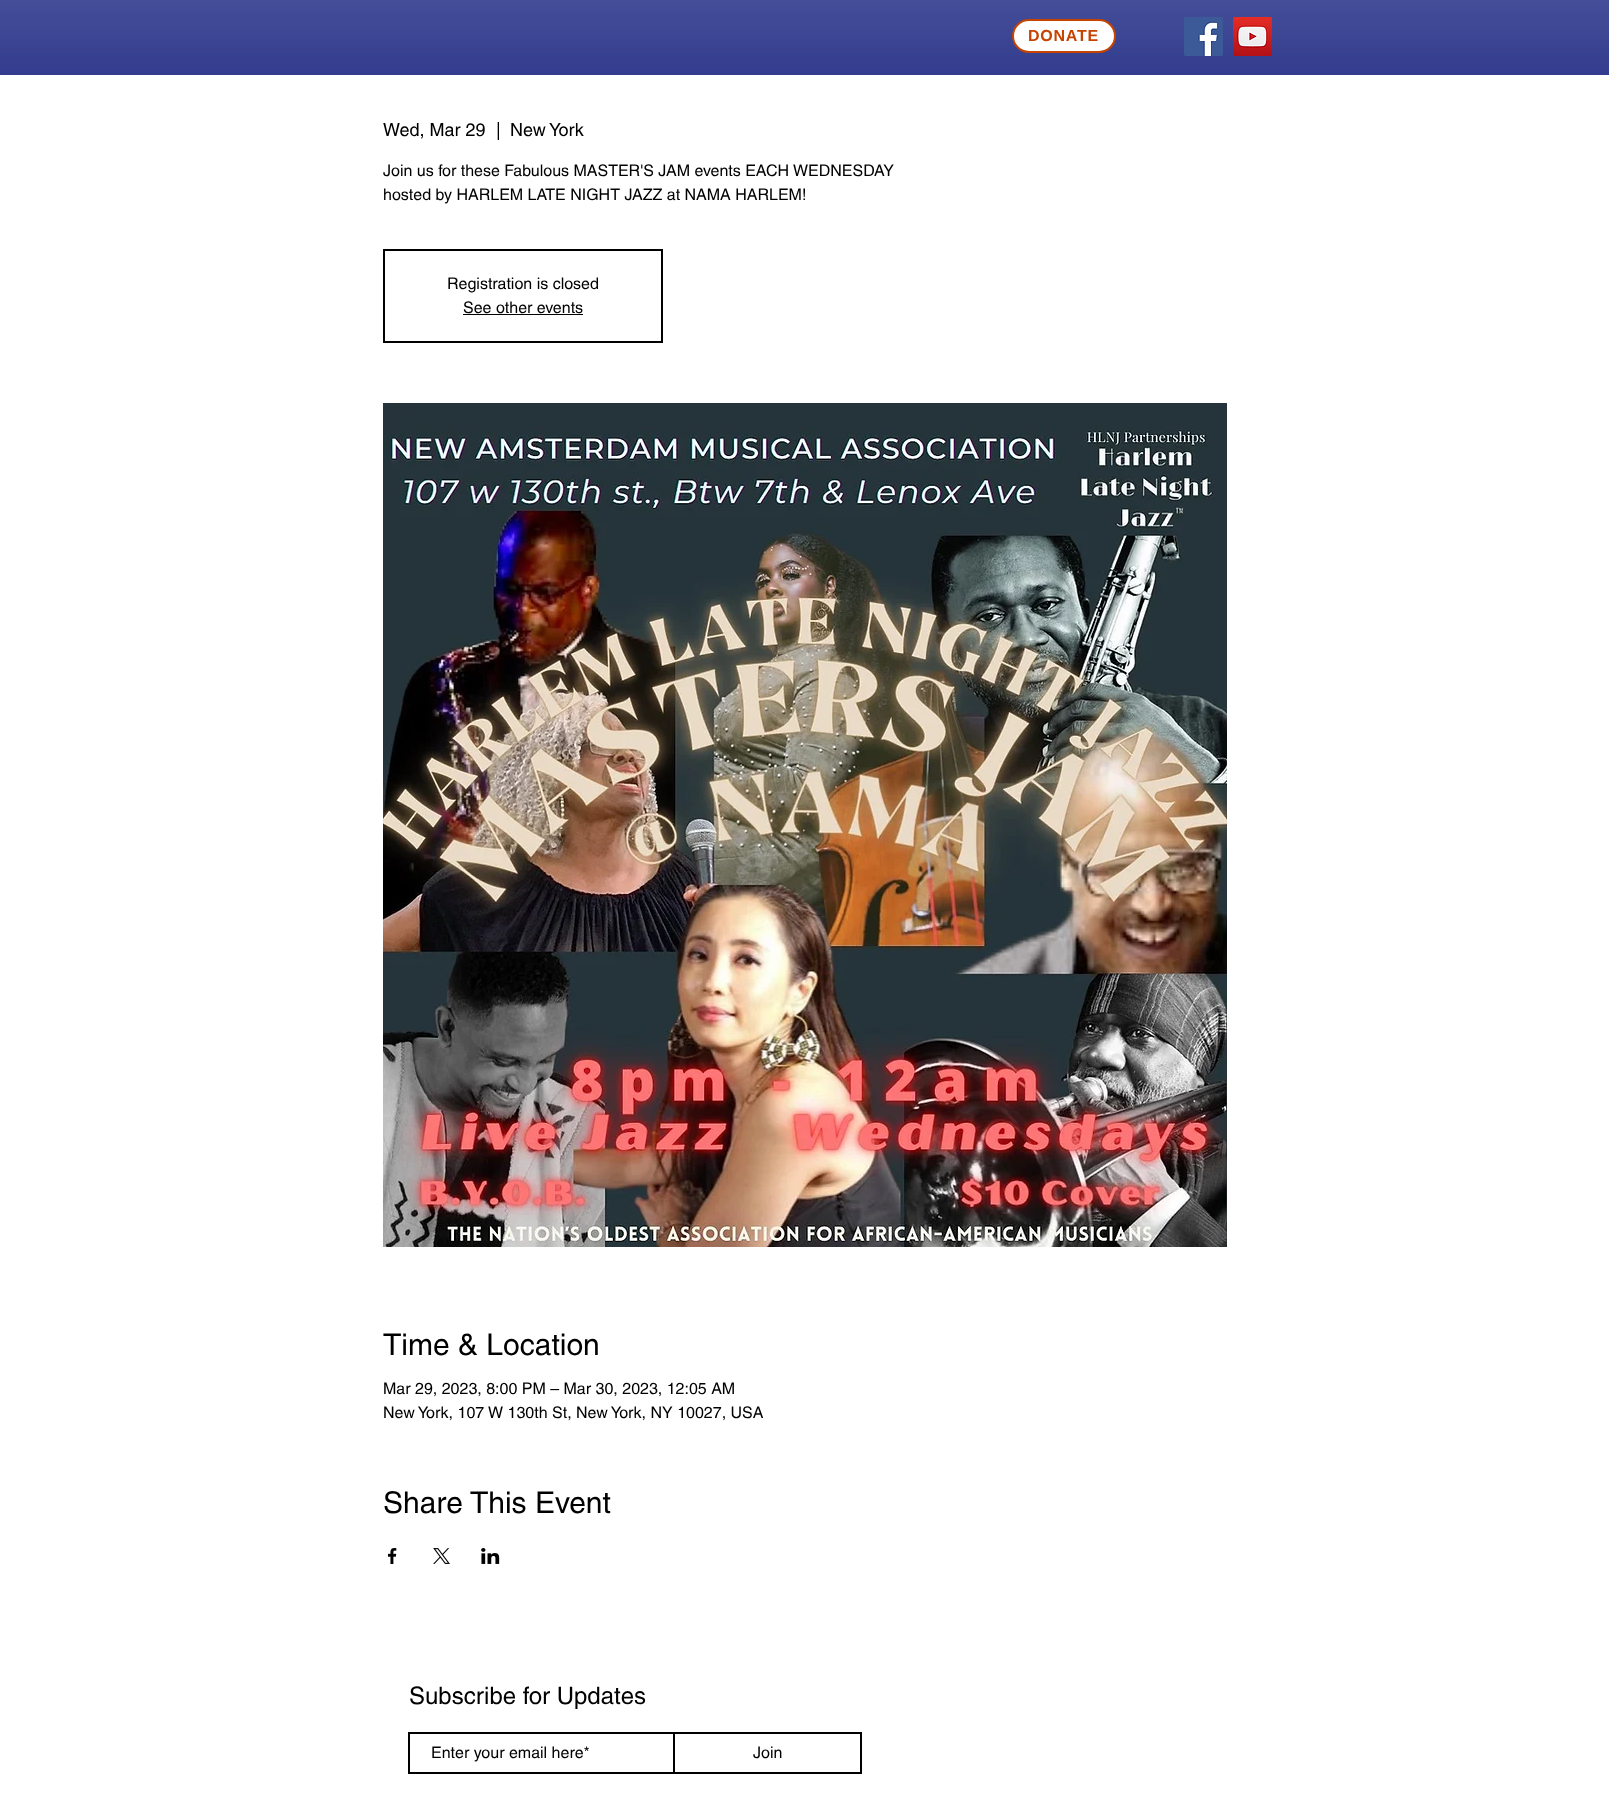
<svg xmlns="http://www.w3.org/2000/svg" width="1609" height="1819">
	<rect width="100%" height="100%" fill="#FFFFFF" />
	<rect x="0" y="0" width="1609" height="75" fill="#051175" />
	<image x="0" y="0" width="1609" height="75" href="assets/img1.png" />
	<rect x="1013" y="20" width="102" height="32" rx="16" fill="#FFFFFF" stroke="#C74300" stroke-width="2" />
	<text x="1028" y="41" font-family="Liberation Sans" font-size="16" font-weight="700" letter-spacing="0.75" fill="#C74300">DONATE</text>
	<image x="1184" y="17" width="39" height="39" href="assets/img2.png" />
	<image x="1233" y="17" width="39" height="39" href="assets/img3.png" />
	<g font-family="helvetica" font-size="18" fill="#000000">
		<text x="383" y="136">Wed, Mar 29</text>
		<text x="496" y="136">|</text>
		<text x="510" y="136">New York</text>
	</g>
	<g font-family="helvetica" font-size="16" fill="#000000">
		<text x="383" y="176">Join us for these Fabulous MASTER'S JAM events EACH WEDNESDAY</text>
		<text x="383" y="200">hosted by HARLEM LATE NIGHT JAZZ at NAMA HARLEM!</text>
	</g>
	<rect x="384" y="250" width="278" height="92" fill="none" stroke="#000000" stroke-width="2" />
	<g font-family="helvetica" font-size="16" fill="#000000">
		<text x="447" y="289">Registration is closed</text>
		<text x="463" y="313">See other events</text>
	</g>
	<rect x="463" y="314" width="120" height="1" fill="#000000" />
	<image x="383" y="403" width="844" height="844" href="assets/img4.png" />
	<text x="383" y="1355" font-family="helvetica" font-size="30" fill="#000000">Time &amp; Location</text>
	<g font-family="helvetica" font-size="16" fill="#000000">
		<text x="383" y="1394">Mar 29, 2023, 8:00 PM – Mar 30, 2023, 12:05 AM</text>
		<text x="383" y="1418">New York, 107 W 130th St, New York, NY 10027, USA</text>
	</g>
	<text x="383" y="1513" font-family="helvetica" font-size="30" fill="#000000">Share This Event</text>
	<image x="388" y="1548" width="9" height="16" href="assets/img5.png" />
	<image x="433" y="1548" width="17" height="16" href="assets/img6.png" />
	<image x="481" y="1548" width="19" height="16" href="assets/img7.png" />
	<text x="409" y="1704" font-family="helvetica" font-size="24" fill="#000000">Subscribe for Updates</text>
	<rect x="409" y="1733" width="399" height="40" fill="none" stroke="#000000" stroke-width="2" />
	<text x="431" y="1758" font-family="helvetica" font-size="16" fill="#000000">Enter your email here*</text>
	<rect x="807" y="1734" width="2" height="38" fill="#FFFFFF" />
	<rect x="674" y="1733" width="187" height="40" fill="none" stroke="#000000" stroke-width="2" />
	<text x="753" y="1758" font-family="helvetica" font-size="16" fill="#000000">Join</text>
</svg>
